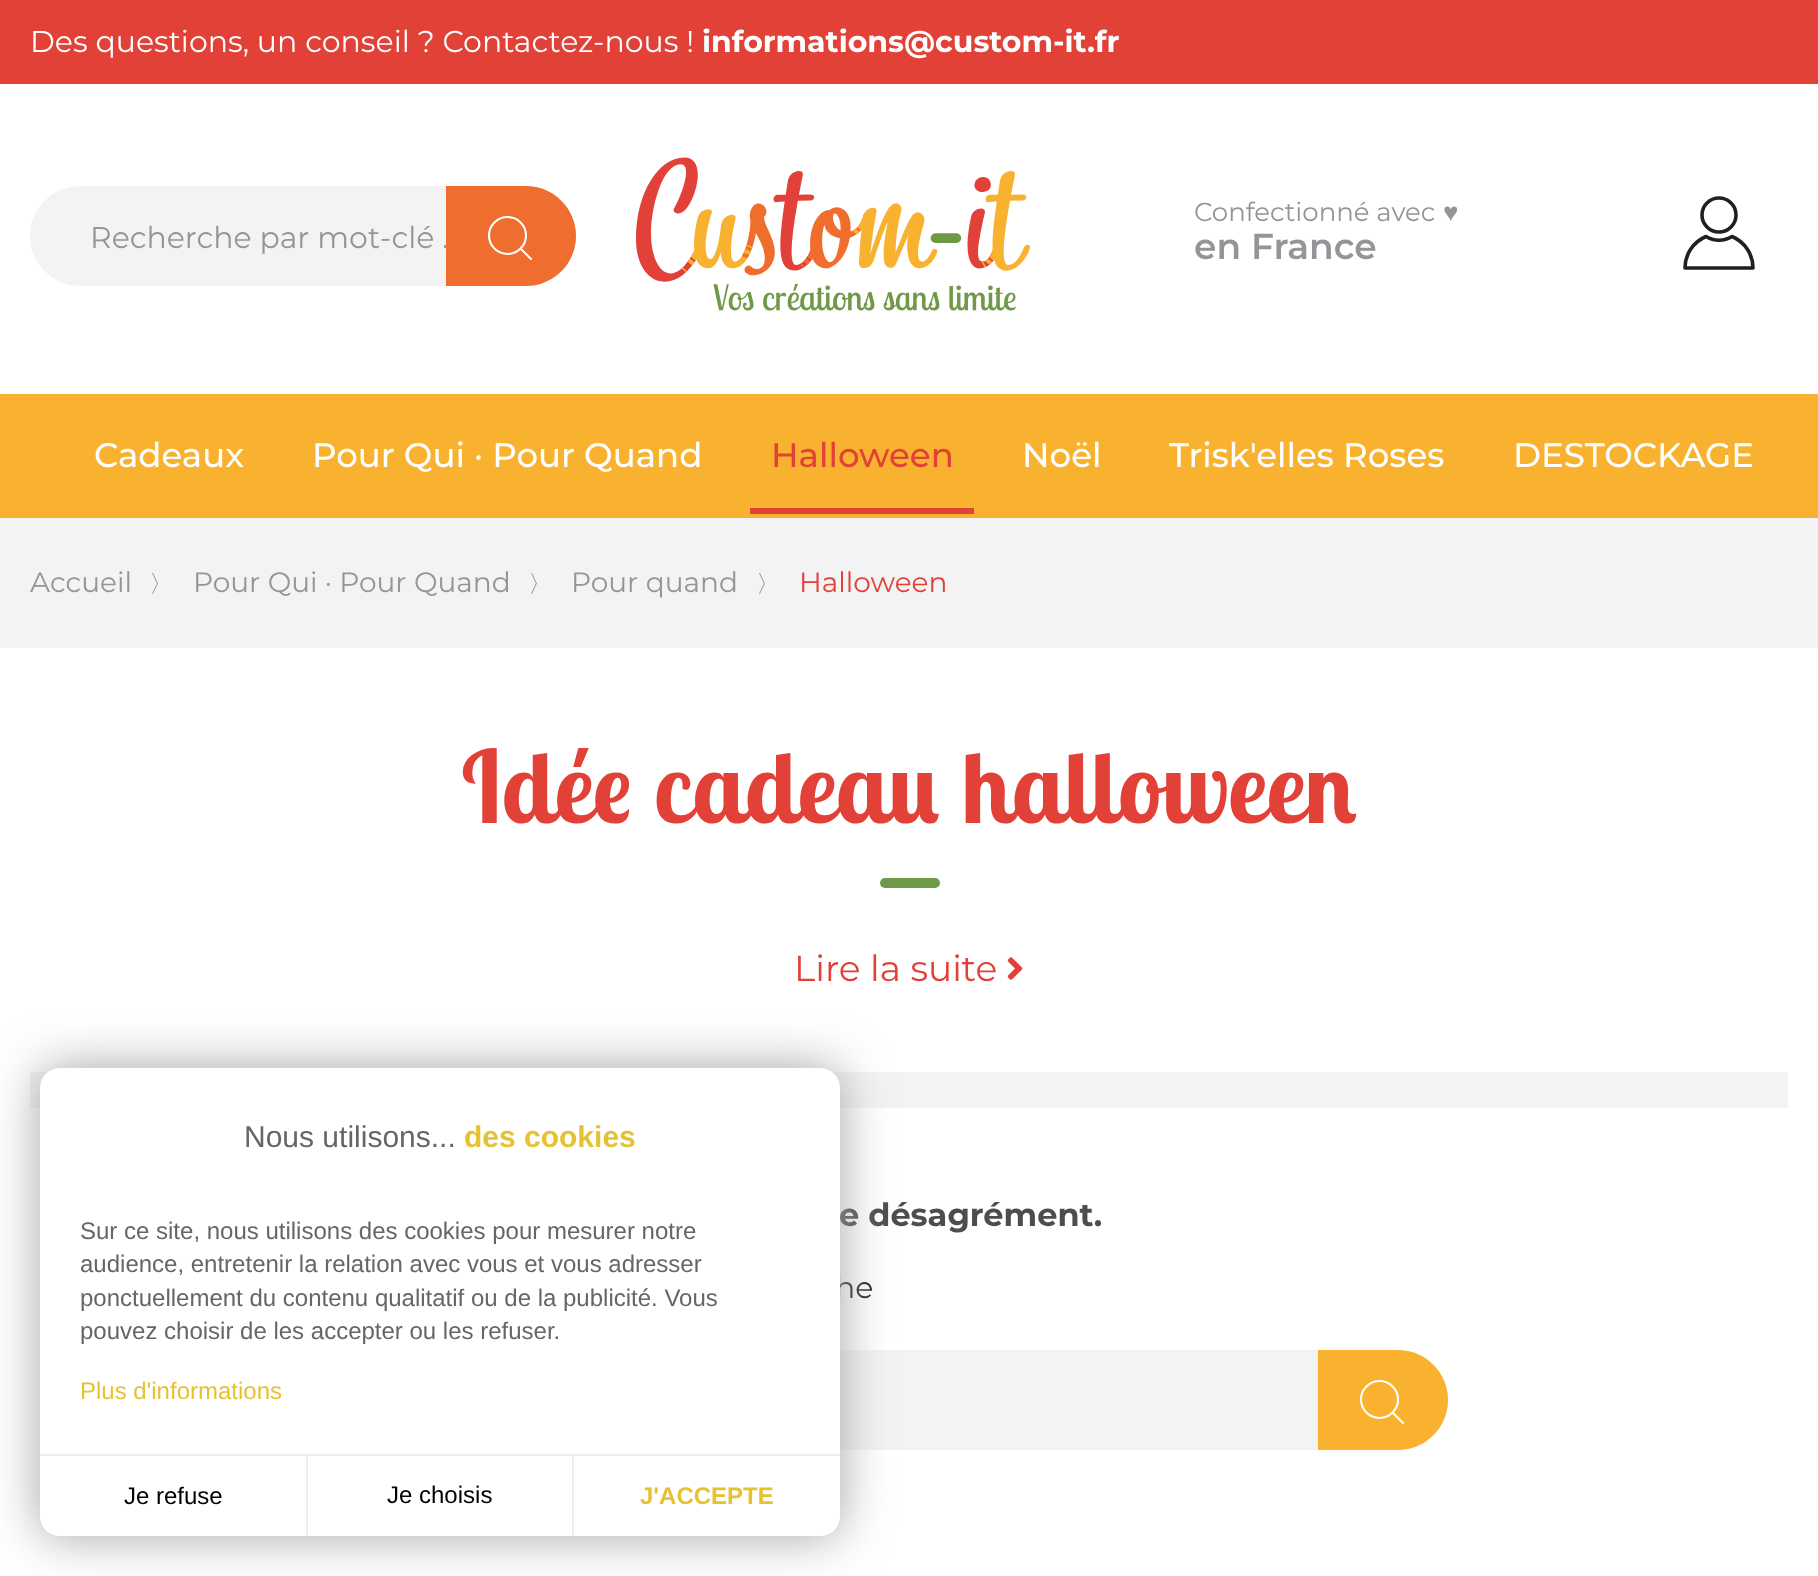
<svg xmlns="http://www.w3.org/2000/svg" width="1818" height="1576">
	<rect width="100%" height="100%" fill="#FFFFFF" />
	<rect x="0" y="0" width="1818" height="84" fill="#E24138" />
	<text x="30" y="52" font-family="Montserrat" font-size="30" fill="#FFFFFF">Des questions, un conseil ? Contactez-nous !</text>
	<text x="702" y="52" font-family="Montserrat" font-size="30" font-weight="700" fill="#FFFFFF">informations@custom-it.fr</text>
	<rect x="30" y="186" width="546" height="100" rx="50" fill="#F4F3F4" />
	<text x="90" y="248" font-family="Montserrat" font-size="30" fill="#939598">Recherche par mot-clé .</text>
	<path d="M446 186H526C553.5 186 576 208.5 576 236C576 263.5 553.5 286 526 286H446Z" fill="#EF6D2E" />
	<circle cx="507.5" cy="235.5" r="18.5" fill="none" stroke="#FFFFFF" stroke-width="2.1" />
	<path d="M521 249L531 259" fill="none" stroke="#FFFFFF" stroke-width="2.1" stroke-linecap="round" stroke-linejoin="round" />
	<image x="636" y="157" width="394" height="154" href="assets/img1.png" />
	<text x="1194" y="221" font-family="Montserrat" font-size="26" fill="#939598">Confectionné avec</text>
	<text x="1443" y="221" font-family="Liberation Sans" font-size="26" fill="#939598">♥</text>
	<text x="1194" y="259" font-family="Montserrat" font-size="36" font-weight="600" fill="#939598">en France</text>
	<circle cx="1719" cy="215" r="17" fill="none" stroke="#231F20" stroke-width="3.6" />
	<path d="M1732 236.5C1724 241.5 1714 241.5 1706 236.5C1693 242 1685 254.5 1685 268H1753C1753 254.5 1745 242 1732 236.5Z" fill="none" stroke="#231F20" stroke-width="3.6" stroke-linecap="round" stroke-linejoin="round" />
	<rect x="0" y="394" width="1818" height="124" fill="#F9B22F" />
	<g font-family="Montserrat" font-size="34" font-weight="500" fill="#FFFFFF">
		<text x="94" y="467">Cadeaux</text>
		<text x="312" y="467">Pour Qui · Pour Quand</text>
	</g>
	<text x="771" y="467" font-family="Montserrat" font-size="34" font-weight="500" fill="#E24138">Halloween</text>
	<rect x="750" y="508" width="224" height="6" fill="#E24138" />
	<g font-family="Montserrat" font-size="34" font-weight="500" fill="#FFFFFF">
		<text x="1022" y="467">Noël</text>
		<text x="1169" y="467">Trisk'elles Roses</text>
		<text x="1513" y="467">DESTOCKAGE</text>
	</g>
	<rect x="0" y="518" width="1818" height="130" fill="#F4F3F4" />
	<text x="30" y="592" font-family="Montserrat" font-size="28" fill="#939598">Accueil</text>
	<text x="149" y="592" font-family="WenQuanYi Zen Hei" font-size="24" font-weight="500" fill="#939598">〉</text>
	<text x="193" y="592" font-family="Montserrat" font-size="28" fill="#939598">Pour Qui · Pour Quand</text>
	<text x="528" y="592" font-family="WenQuanYi Zen Hei" font-size="24" font-weight="500" fill="#939598">〉</text>
	<text x="571" y="592" font-family="Montserrat" font-size="28" fill="#939598">Pour quand</text>
	<text x="756" y="592" font-family="WenQuanYi Zen Hei" font-size="24" font-weight="500" fill="#939598">〉</text>
	<text x="799" y="592" font-family="Montserrat" font-size="28" fill="#E24138">Halloween</text>
	<text x="461" y="823" font-family="Lobster Two" font-size="100" font-weight="700" fill="#E24138">Idée cadeau halloween</text>
	<rect x="880" y="878" width="60" height="10" rx="5" fill="#6E9947" />
	<text x="794" y="981" font-family="Montserrat" font-size="36" fill="#E24138">Lire la suite</text>
	<image x="1007" y="957" width="16" height="23" href="assets/img2.png" />
	<rect x="30" y="1072" width="1758" height="36" fill="#F4F3F4" />
	<text x="839" y="1226" font-family="Montserrat" font-size="32" font-weight="700" fill="#4F4C4D">e désagrément.</text>
	<text x="835" y="1298" font-family="Montserrat" font-size="30" fill="#231F20">he</text>
	<rect x="372" y="1350" width="1076" height="100" rx="50" fill="#F4F3F4" />
	<path d="M1318 1350H1398C1425.5 1350 1448 1372.5 1448 1400C1448 1427.5 1425.5 1450 1398 1450H1318Z" fill="#F9B22F" />
	<circle cx="1379.5" cy="1399.5" r="18.5" fill="none" stroke="#FFFFFF" stroke-width="2.1" />
	<path d="M1393 1413L1403 1423" fill="none" stroke="#FFFFFF" stroke-width="2.1" stroke-linecap="round" stroke-linejoin="round" />
	<rect x="40" y="1068" width="800" height="468" rx="20" fill="#A3A3A3" filter="blur(25px)" />
	<rect x="40" y="1068" width="800" height="468" rx="20" fill="#FFFFFF" />
	<text x="244" y="1147" font-family="Liberation Sans" font-size="30" fill="#666666">Nous utilisons...</text>
	<text x="464" y="1147" font-family="Liberation Sans" font-size="30" font-weight="700" fill="#E6C233">des cookies</text>
	<g font-family="Liberation Sans" font-size="24" fill="#666666">
		<text x="80" y="1239">Sur ce site, nous utilisons des cookies pour mesurer notre</text>
		<text x="80" y="1272">audience, entretenir la relation avec vous et vous adresser</text>
		<text x="80" y="1306">ponctuellement du contenu qualitatif ou de la publicité. Vous</text>
		<text x="80" y="1339">pouvez choisir de les accepter ou les refuser.</text>
	</g>
	<text x="80" y="1399" font-family="Liberation Sans" font-size="24" fill="#E6C233">Plus d'informations</text>
	<rect x="40" y="1454" width="800" height="2" fill="#EDEDED" />
	<path d="M40 1456H306V1536H60C49 1536 40 1527 40 1516Z" fill="#FFFFFF" />
	<text x="124" y="1504" font-family="Liberation Sans" font-size="24" fill="#000000">Je refuse</text>
	<rect x="572" y="1456" width="2" height="80" fill="#EDEDED" />
	<rect x="306" y="1456" width="2" height="80" fill="#EDEDED" />
	<text x="387" y="1503" font-family="Liberation Sans" font-size="24" fill="#000000">Je choisis</text>
	<path d="M574 1456H840V1516C840 1527 831 1536 820 1536H574Z" fill="#FFFFFF" />
	<text x="640" y="1504" font-family="Liberation Sans" font-size="24" font-weight="700" fill="#E6C233">J'ACCEPTE</text>
</svg>
